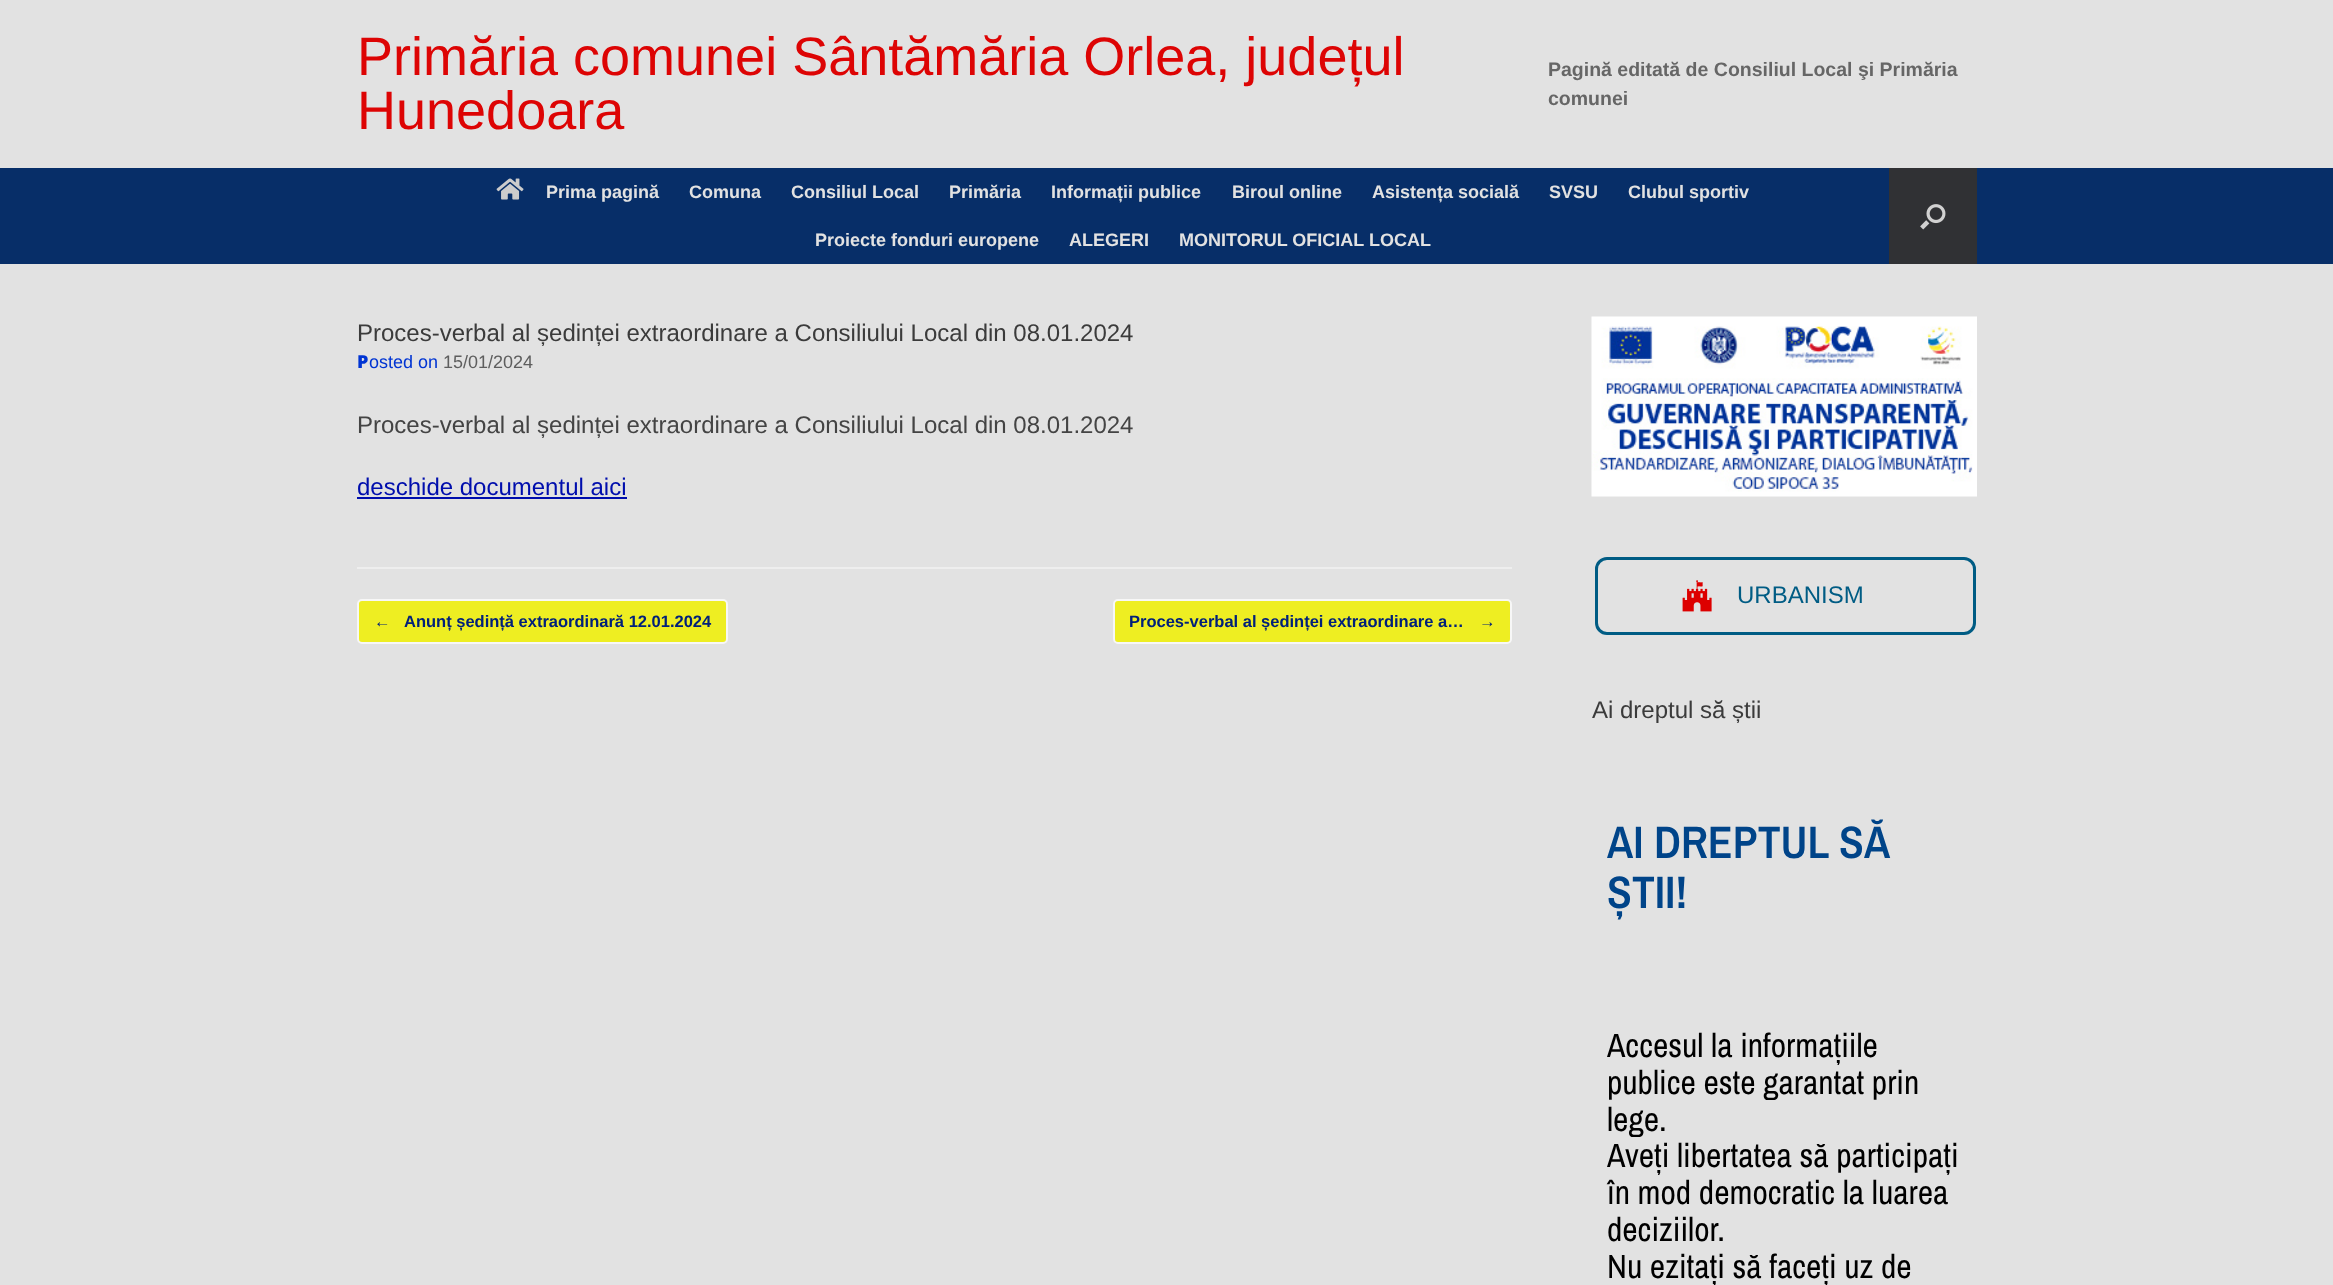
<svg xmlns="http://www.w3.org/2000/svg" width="2333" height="1285">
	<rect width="100%" height="100%" fill="#E2E2E2" />
	<g font-family="Liberation Sans" font-size="54" fill="#DD0404">
		<text x="357" y="75">Primăria comunei Sântămăria Orlea, județul</text>
		<text x="357" y="129">Hunedoara</text>
	</g>
	<g font-family="Liberation Sans" font-size="19.5" font-weight="700" fill="#666666">
		<text x="1548" y="76">Pagină editată de Consiliul Local şi Primăria</text>
		<text x="1548" y="105">comunei</text>
	</g>
	<rect x="0" y="168" width="2333" height="96" fill="#072E68" />
	<image x="496" y="178" width="28" height="22" href="assets/img1.png" />
	<g font-family="Liberation Sans" font-size="18" font-weight="700" fill="#E2E2E2">
		<text x="546" y="198">Prima pagină</text>
		<text x="689" y="198">Comuna</text>
		<text x="791" y="198">Consiliul Local</text>
		<text x="949" y="198">Primăria</text>
		<text x="1051" y="198">Informații publice</text>
		<text x="1232" y="198">Biroul online</text>
		<text x="1372" y="198">Asistența socială</text>
		<text x="1549" y="198">SVSU</text>
		<text x="1628" y="198">Clubul sportiv</text>
		<text x="815" y="246">Proiecte fonduri europene</text>
		<text x="1069" y="246">ALEGERI</text>
		<text x="1179" y="246">MONITORUL OFICIAL LOCAL</text>
	</g>
	<rect x="1889" y="168" width="88" height="96" fill="#303134" />
	<image x="1920" y="204" width="26" height="26" href="assets/img2.png" />
	<rect x="357" y="567" width="1155" height="2" fill="#EEEEEE" />
	<text x="357" y="341" font-family="Liberation Sans" font-size="24" fill="#3B3B3B">Proces-verbal al ședinței extraordinare a Consiliului Local din 08.01.2024</text>
	<text x="357" y="368" font-family="Noto Sans" font-size="18" font-weight="900" fill="#0034D3">P</text>
	<text x="369" y="368" font-family="Liberation Sans" font-size="18" fill="#0034D3">osted on</text>
	<text x="443" y="368" font-family="Liberation Sans" font-size="18" fill="#5E5E5E">15/01/2024</text>
	<text x="357" y="433" font-family="Liberation Sans" font-size="24" fill="#444444">Proces-verbal al ședinței extraordinare a Consiliului Local din 08.01.2024</text>
	<text x="357" y="495" font-family="Liberation Sans" font-size="24" fill="#000EAD">deschide documentul aici</text>
	<rect x="357" y="497" width="270" height="2" fill="#000EAD" />
	<rect x="358" y="600" width="369" height="43" rx="4" fill="#EEEE22" stroke="#F7F7F7" stroke-width="2" />
	<g font-family="Liberation Sans" font-size="16.5" font-weight="700" fill="#00207A">
		<text x="374" y="627">←</text>
		<text x="404" y="627">Anunț ședință extraordinară 12.01.2024</text>
	</g>
	<rect x="1114" y="600" width="397" height="43" rx="4" fill="#EEEE22" stroke="#F7F7F7" stroke-width="2" />
	<g font-family="Liberation Sans" font-size="16.5" font-weight="700" fill="#00207A">
		<text x="1129" y="627">Proces-verbal al ședinței extraordinare a…</text>
		<text x="1479" y="627">→</text>
	</g>
	<image x="1591" y="316" width="386" height="181" href="assets/img3.png" />
	<rect x="1596.5" y="558.5" width="378" height="75" rx="10.5" fill="none" stroke="#005C84" stroke-width="3" />
	<image x="1682" y="580" width="30" height="32" href="assets/img4.png" />
	<text x="1737" y="603" font-family="Liberation Sans" font-size="24" fill="#005C84">URBANISM</text>
	<text x="1592" y="718" font-family="Liberation Sans" font-size="24" fill="#3B3B3B">Ai dreptul să știi</text>
	<g font-family="Archivo Narrow" font-size="45.5" font-weight="600" fill="#004489">
		<text x="1607" y="858">AI DREPTUL SĂ</text>
		<text x="1607" y="908">ȘTII!</text>
	</g>
	<g font-family="Archivo Narrow" font-size="33.6" fill="#000000">
		<text x="1607" y="1057">Accesul la informațiile</text>
		<text x="1607" y="1094">publice este garantat prin</text>
		<text x="1607" y="1131">lege.</text>
		<text x="1607" y="1167">Aveți libertatea să participați</text>
		<text x="1607" y="1204">în mod democratic la luarea</text>
		<text x="1607" y="1241">deciziilor.</text>
		<text x="1607" y="1278">Nu ezitați să faceți uz de</text>
	</g>
</svg>
